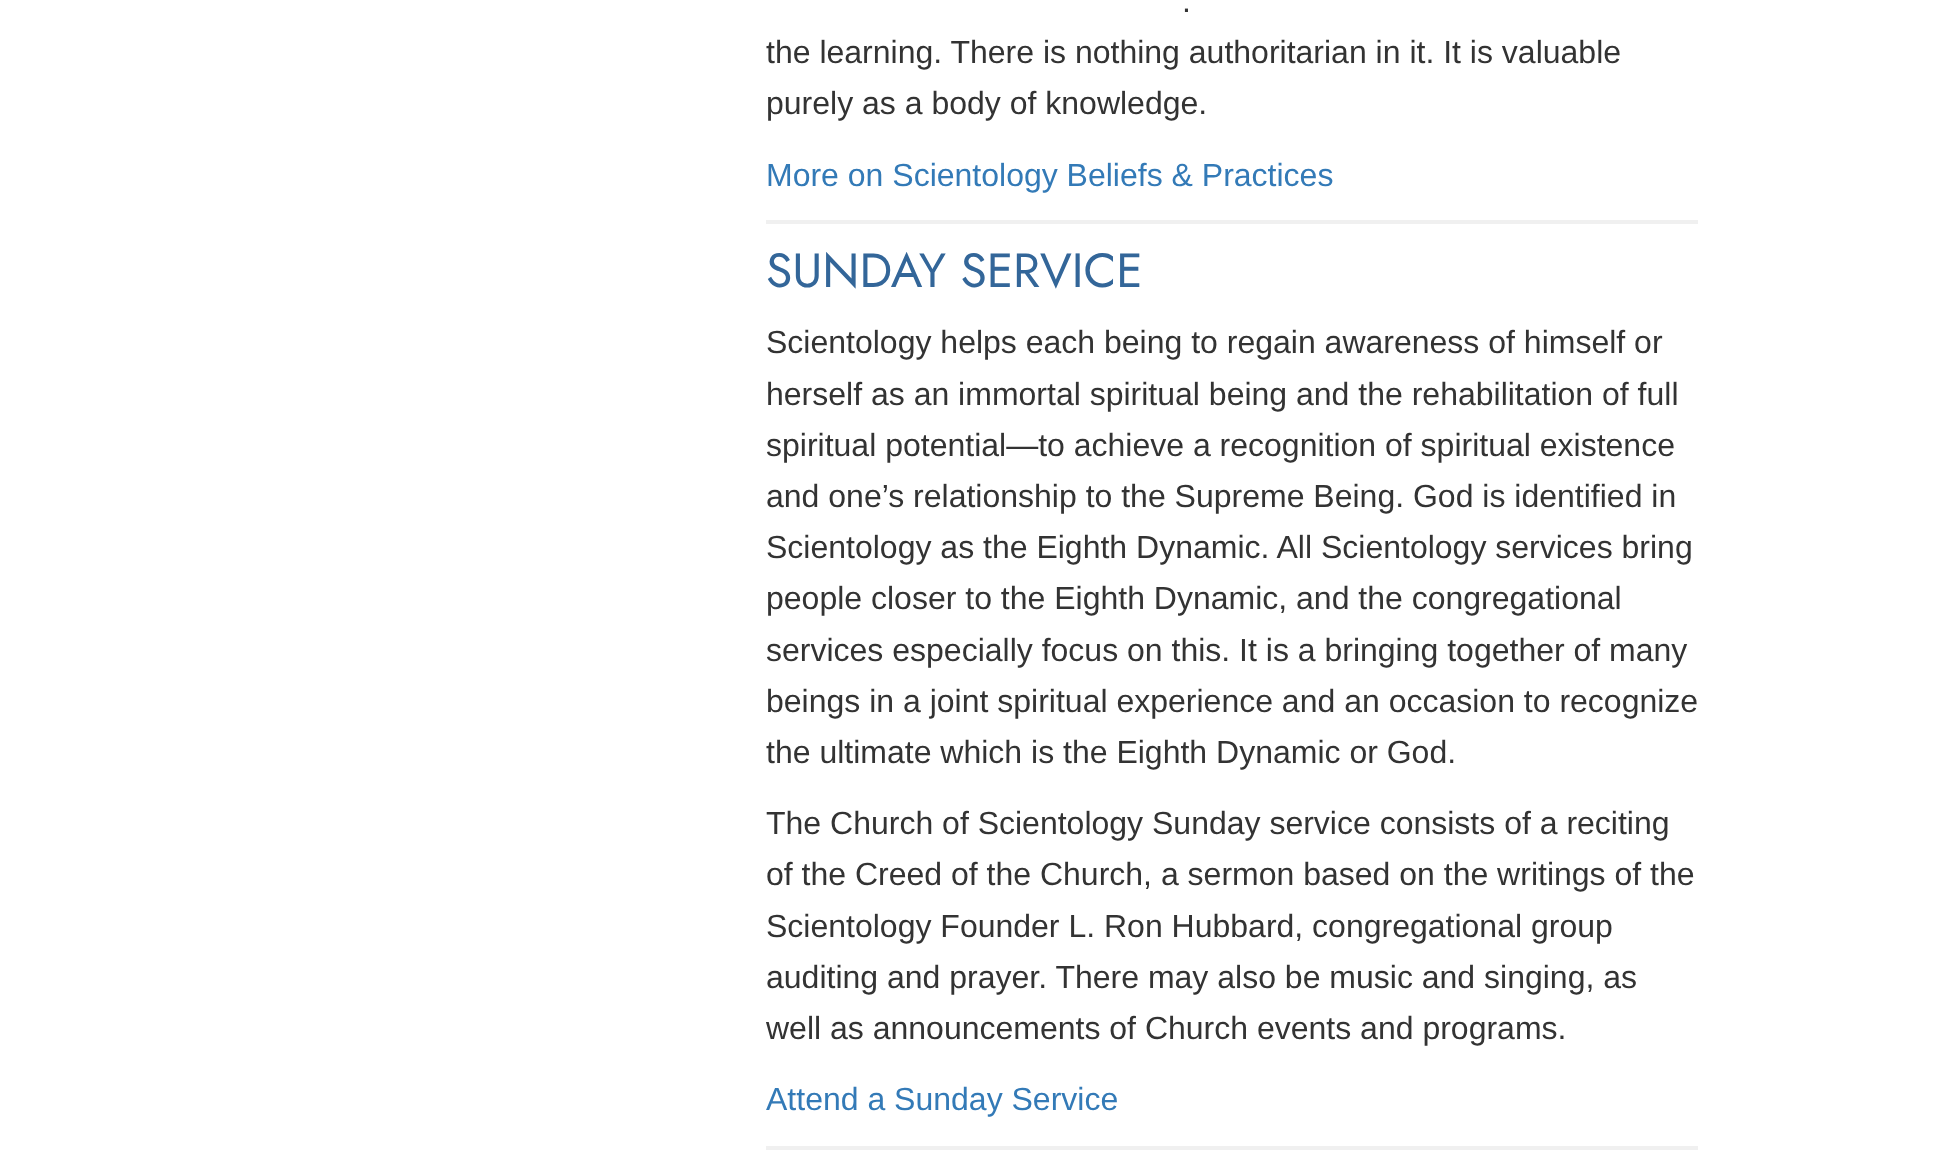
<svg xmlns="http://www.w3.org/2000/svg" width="1958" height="1159">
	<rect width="100%" height="100%" fill="#FFFFFF" />
	<g font-family="Liberation Sans" font-size="32" fill="#333333">
		<text x="1182" y="12">.</text>
		<text x="766" y="63">the learning. There is nothing authoritarian in it. It is valuable</text>
		<text x="766" y="114">purely as a body of knowledge.</text>
	</g>
	<text x="766" y="186" font-family="Liberation Sans" font-size="32" fill="#337AB7">More on Scientology Beliefs &amp; Practices</text>
	<rect x="766" y="220" width="932" height="4" fill="#F0F0F0" />
	<text x="766" y="287" font-family="Jost" font-size="48" fill="#336699">SUNDAY SERVICE</text>
	<g font-family="Liberation Sans" font-size="32" fill="#333333">
		<text x="766" y="353">Scientology helps each being to regain awareness of himself or</text>
		<text x="766" y="405">herself as an immortal spiritual being and the rehabilitation of full</text>
		<text x="766" y="456">spiritual potential—to achieve a recognition of spiritual existence</text>
		<text x="766" y="507">and one’s relationship to the Supreme Being. God is identified in</text>
		<text x="766" y="558">Scientology as the Eighth Dynamic. All Scientology services bring</text>
		<text x="766" y="609">people closer to the Eighth Dynamic, and the congregational</text>
		<text x="766" y="661">services especially focus on this. It is a bringing together of many</text>
		<text x="766" y="712">beings in a joint spiritual experience and an occasion to recognize</text>
		<text x="766" y="763">the ultimate which is the Eighth Dynamic or God.</text>
		<text x="766" y="834">The Church of Scientology Sunday service consists of a reciting</text>
		<text x="766" y="885">of the Creed of the Church, a sermon based on the writings of the</text>
		<text x="766" y="937">Scientology Founder L. Ron Hubbard, congregational group</text>
		<text x="766" y="988">auditing and prayer. There may also be music and singing, as</text>
		<text x="766" y="1039">well as announcements of Church events and programs.</text>
	</g>
	<text x="766" y="1110" font-family="Liberation Sans" font-size="32" fill="#337AB7">Attend a Sunday Service</text>
	<rect x="766" y="1146" width="932" height="4" fill="#F0F0F0" />
</svg>
